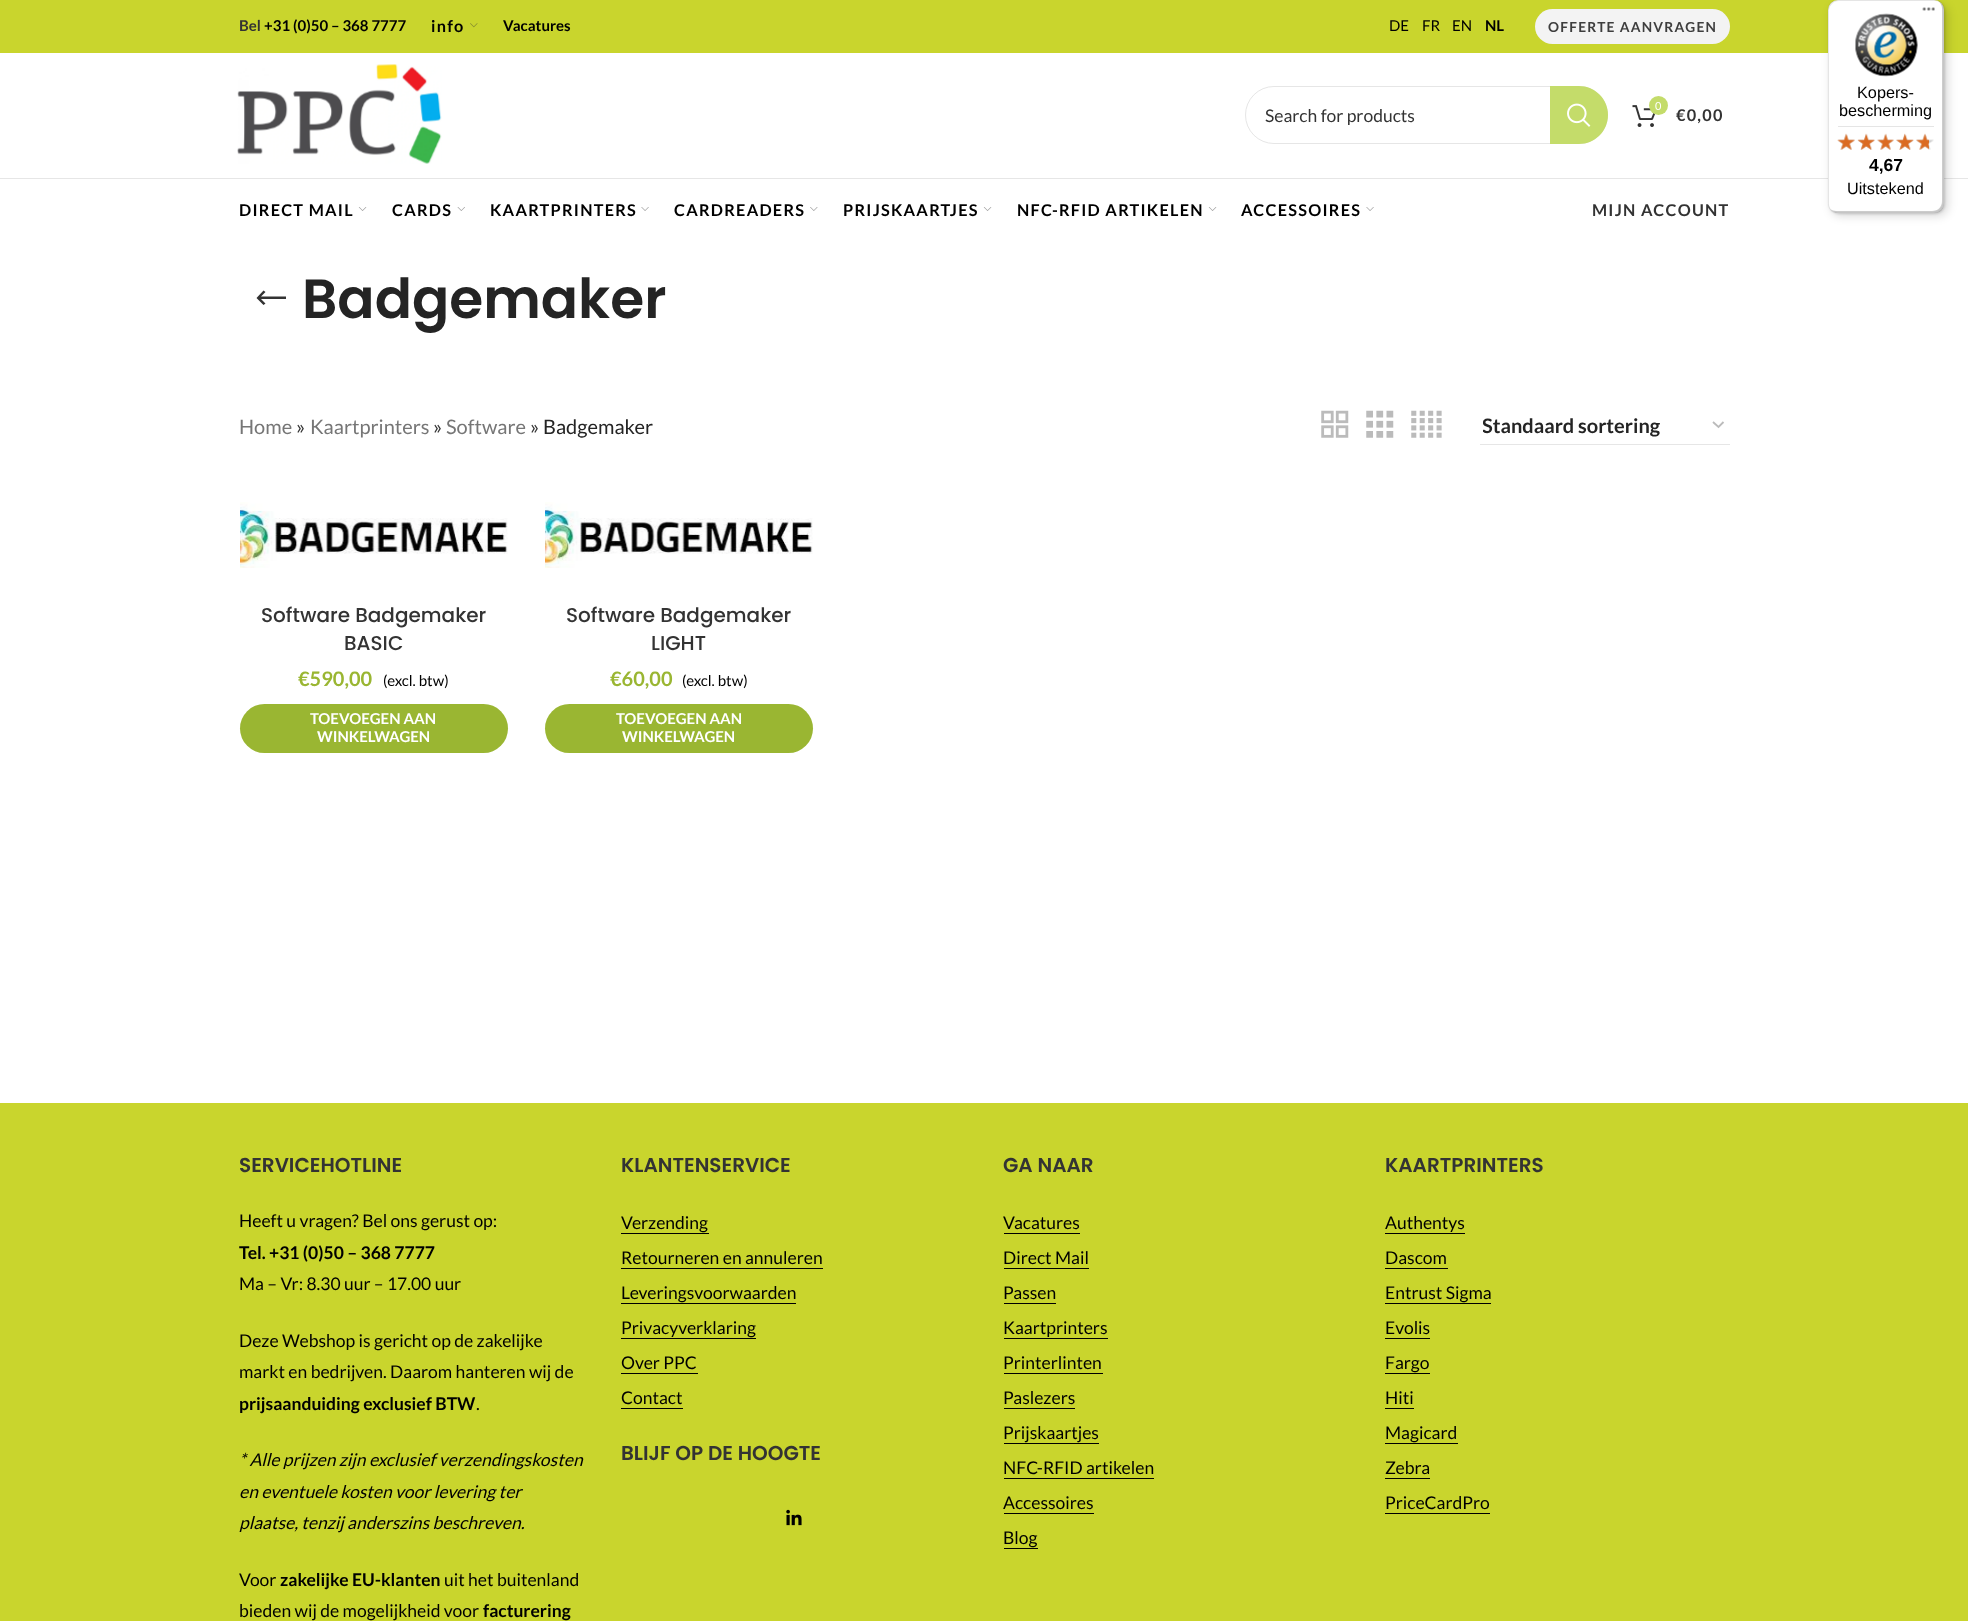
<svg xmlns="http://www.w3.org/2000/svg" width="1968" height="1621">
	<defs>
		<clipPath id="clip1"><rect x="1483" y="414" width="222" height="24" /></clipPath>
	</defs>
	<rect width="100%" height="100%" fill="#FFFFFF" />
	<rect x="0" y="0" width="1968" height="53" fill="#C9D52D" />
	<text x="239" y="31" font-family="Lato" font-size="15" font-weight="700" fill="#333333">Bel</text>
	<text x="264" y="31" font-family="Lato" font-size="15" font-weight="700" fill="#000000">+31 (0)50 – 368 7777</text>
	<text x="431" y="32" font-family="Lato" font-size="16.25" font-weight="700" letter-spacing="1.25" fill="#000000">info</text>
	<image x="470" y="23" width="8" height="5" href="assets/img1.png" />
	<text x="503" y="31" font-family="Lato" font-size="15" font-weight="700" fill="#000000">Vacatures</text>
	<g font-family="Lato" font-size="15" fill="#000000">
		<text x="1389" y="31">DE</text>
		<text x="1422" y="31">FR</text>
		<text x="1452" y="31">EN</text>
	</g>
	<text x="1485" y="31" font-family="Lato" font-size="15" font-weight="700" fill="#000000">NL</text>
	<rect x="1535" y="9" width="195" height="35" rx="17.5" fill="#F3F3F3" />
	<text x="1548" y="32" font-family="Lato" font-size="13.75" font-weight="700" letter-spacing="1.25" fill="#3E3E3E">OFFERTE AANVRAGEN</text>
	<rect x="0" y="178" width="1968" height="1" fill="#E6E6E6" />
	<image x="237" y="64" width="205" height="100" href="assets/img2.png" />
	<rect x="1245.5" y="86.5" width="362" height="57" rx="28.5" fill="none" stroke="#E6E6E6" />
	<text x="1265" y="122" font-family="Lato" font-size="17.5" fill="#333333">Search for products</text>
	<path d="M1550 86H1579C1595 86 1608 99 1608 115C1608 131 1595 144 1579 144H1550Z" fill="#C4DC6A" />
	<image x="1567" y="103" width="24" height="24" href="assets/img3.png" />
	<image x="1632" y="105" width="23" height="22" href="assets/img4.png" />
	<circle cx="1658.5" cy="105.5" r="9.5" fill="#C4DC6A" />
	<text x="1655" y="110" font-family="Lato" font-size="11" fill="#FFFFFF">0</text>
	<text x="1676" y="121" font-family="Lato" font-size="16.25" font-weight="700" letter-spacing="1.25" fill="#333333">€0,00</text>
	<text x="239" y="216" font-family="Lato" font-size="16.25" font-weight="700" letter-spacing="1.25" fill="#000000">DIRECT MAIL</text>
	<image x="358" y="207" width="9" height="4" href="assets/img5.png" />
	<text x="392" y="216" font-family="Lato" font-size="16.25" font-weight="700" letter-spacing="1.25" fill="#000000">CARDS</text>
	<image x="457" y="207" width="8" height="4" href="assets/img6.png" />
	<text x="490" y="216" font-family="Lato" font-size="16.25" font-weight="700" letter-spacing="1.25" fill="#000000">KAARTPRINTERS</text>
	<image x="641" y="207" width="8" height="4" href="assets/img7.png" />
	<text x="674" y="216" font-family="Lato" font-size="16.25" font-weight="700" letter-spacing="1.25" fill="#000000">CARDREADERS</text>
	<image x="810" y="207" width="8" height="4" href="assets/img8.png" />
	<text x="843" y="216" font-family="Lato" font-size="16.25" font-weight="700" letter-spacing="1.25" fill="#000000">PRIJSKAARTJES</text>
	<image x="983" y="207" width="9" height="4" href="assets/img5.png" />
	<text x="1017" y="216" font-family="Lato" font-size="16.25" font-weight="700" letter-spacing="1.25" fill="#000000">NFC-RFID ARTIKELEN</text>
	<image x="1208" y="207" width="9" height="4" href="assets/img5.png" />
	<text x="1241" y="216" font-family="Lato" font-size="16.25" font-weight="700" letter-spacing="1.25" fill="#000000">ACCESSOIRES</text>
	<image x="1366" y="207" width="8" height="4" href="assets/img7.png" />
	<text x="1592" y="216" font-family="Lato" font-size="16.25" font-weight="700" letter-spacing="1.25" fill="#333333">MIJN ACCOUNT</text>
	<path d="M265.5 303.5L261 299H286V296.5H261L265.5 292L263.5 290.5L256.5 298L263.5 305Z" fill="#333333" />
	<text x="302" y="318" font-family="Poppins" font-size="55" font-weight="600" fill="#242424">Badgemaker</text>
	<text x="239" y="434" font-family="Lato" font-size="20" fill="#767676">Home</text>
	<text x="296" y="434" font-family="Lato" font-size="20" fill="#333333">»</text>
	<text x="310" y="434" font-family="Lato" font-size="20" fill="#767676">Kaartprinters</text>
	<text x="433" y="434" font-family="Lato" font-size="20" fill="#333333">»</text>
	<text x="446" y="434" font-family="Lato" font-size="20" fill="#767676">Software</text>
	<text x="530" y="434" font-family="Lato" font-size="20" fill="#333333">»</text>
	<text x="543" y="434" font-family="Lato" font-size="20" fill="#242424">Badgemaker</text>
	<image x="1321" y="410" width="28" height="28" href="assets/img9.png" />
	<image x="1366" y="410" width="28" height="28" href="assets/img10.png" />
	<image x="1411" y="410" width="31" height="28" href="assets/img11.png" />
	<path d="M1713 422L1718.5 427L1723.5 422" fill="none" stroke="#BBBBBB" stroke-width="1.8" />
	<rect x="1480" y="444" width="250" height="1" fill="#E6E6E6" />
	<g clip-path="url(#clip1)">
		<text x="1482" y="433" font-family="Lato" font-size="20" font-weight="700" fill="#242424">Standaard sortering</text>
	</g>
	<image x="240" y="502" width="268" height="66" href="assets/img12.png" />
	<g font-family="Poppins" font-size="20" font-weight="500" fill="#333333">
		<text x="261" y="622">Software Badgemaker</text>
		<text x="344" y="650">BASIC</text>
	</g>
	<text x="298" y="686" font-family="Lato" font-size="20" font-weight="700" fill="#9AB632">€590,00</text>
	<text x="383" y="686" font-family="Lato" font-size="15" fill="#000000">(excl. btw)</text>
	<rect x="240" y="704" width="268" height="49" rx="24.5" fill="#9AB632" />
	<g font-family="Lato" font-size="15" font-weight="700" fill="#FFFFFF">
		<text x="310" y="724">TOEVOEGEN AAN</text>
		<text x="317" y="742">WINKELWAGEN</text>
	</g>
	<image x="545" y="502" width="268" height="66" href="assets/img12.png" />
	<g font-family="Poppins" font-size="20" font-weight="500" fill="#333333">
		<text x="566" y="622">Software Badgemaker</text>
		<text x="651" y="650">LIGHT</text>
	</g>
	<text x="610" y="686" font-family="Lato" font-size="20" font-weight="700" fill="#9AB632">€60,00</text>
	<text x="682" y="686" font-family="Lato" font-size="15" fill="#000000">(excl. btw)</text>
	<rect x="545" y="704" width="268" height="49" rx="24.5" fill="#9AB632" />
	<g font-family="Lato" font-size="15" font-weight="700" fill="#FFFFFF">
		<text x="616" y="724">TOEVOEGEN AAN</text>
		<text x="622" y="742">WINKELWAGEN</text>
	</g>
	<rect x="0" y="1103" width="1968" height="518" fill="#C9D52D" />
	<text x="239" y="1172" font-family="Poppins" font-size="20" font-weight="600" fill="#333333">SERVICEHOTLINE</text>
	<text x="239" y="1227" font-family="Lato" font-size="17.5" fill="#000000">Heeft u vragen? Bel ons gerust op:</text>
	<text x="239" y="1259" font-family="Lato" font-size="17.5" font-weight="700" fill="#000000">Tel. +31 (0)50 – 368 7777</text>
	<g font-family="Lato" font-size="17.5" fill="#000000">
		<text x="239" y="1290">Ma – Vr: 8.30 uur – 17.00 uur</text>
		<text x="239" y="1347">Deze Webshop is gericht op de zakelijke</text>
		<text x="239" y="1378">markt en bedrijven. Daarom hanteren wij de</text>
	</g>
	<text x="239" y="1410" font-family="Lato" font-size="17.5" font-weight="700" fill="#000000">prijsaanduiding exclusief BTW</text>
	<text x="476" y="1410" font-family="Lato" font-size="17.5" fill="#000000">.</text>
	<g font-family="Lato" font-size="17.5" font-style="italic" fill="#000000">
		<text x="239" y="1466">* Alle prijzen zijn exclusief verzendingskosten</text>
		<text x="239" y="1498">en eventuele kosten voor levering ter</text>
		<text x="239" y="1529">plaatse, tenzij anderszins beschreven.</text>
	</g>
	<text x="239" y="1586" font-family="Lato" font-size="17.5" fill="#000000">Voor</text>
	<text x="280" y="1586" font-family="Lato" font-size="17.5" font-weight="700" fill="#000000">zakelijke EU-klanten</text>
	<g font-family="Lato" font-size="17.5" fill="#000000">
		<text x="444" y="1586">uit het buitenland</text>
		<text x="239" y="1617">bieden wij de mogelijkheid voor</text>
	</g>
	<text x="483" y="1617" font-family="Lato" font-size="17.5" font-weight="700" fill="#000000">facturering</text>
	<text x="621" y="1172" font-family="Poppins" font-size="20" font-weight="600" fill="#333333">KLANTENSERVICE</text>
	<text x="621" y="1229" font-family="Lato" font-size="17.5" fill="#000000">Verzending</text>
	<rect x="621" y="1233" width="88" height="1" fill="#000000" />
	<text x="621" y="1264" font-family="Lato" font-size="17.5" fill="#000000">Retourneren en annuleren</text>
	<rect x="621" y="1268" width="202" height="1" fill="#000000" />
	<text x="621" y="1299" font-family="Lato" font-size="17.5" fill="#000000">Leveringsvoorwaarden</text>
	<rect x="621" y="1303" width="175" height="1" fill="#000000" />
	<text x="621" y="1334" font-family="Lato" font-size="17.5" fill="#000000">Privacyverklaring</text>
	<rect x="621" y="1338" width="135" height="1" fill="#000000" />
	<text x="621" y="1369" font-family="Lato" font-size="17.5" fill="#000000">Over PPC</text>
	<rect x="621" y="1373" width="77" height="1" fill="#000000" />
	<text x="621" y="1404" font-family="Lato" font-size="17.5" fill="#000000">Contact</text>
	<rect x="621" y="1408" width="62" height="1" fill="#000000" />
	<text x="621" y="1460" font-family="Poppins" font-size="20" font-weight="600" fill="#333333">BLIJF OP DE HOOGTE</text>
	<image x="786" y="1509" width="16" height="17" href="assets/img13.png" />
	<text x="1003" y="1172" font-family="Poppins" font-size="20" font-weight="600" fill="#333333">GA NAAR</text>
	<text x="1003" y="1229" font-family="Lato" font-size="17.5" fill="#000000">Vacatures</text>
	<rect x="1004" y="1233" width="76" height="1" fill="#000000" />
	<text x="1003" y="1264" font-family="Lato" font-size="17.5" fill="#000000">Direct Mail</text>
	<rect x="1004" y="1268" width="85" height="1" fill="#000000" />
	<text x="1003" y="1299" font-family="Lato" font-size="17.5" fill="#000000">Passen</text>
	<rect x="1004" y="1303" width="52" height="1" fill="#000000" />
	<text x="1003" y="1334" font-family="Lato" font-size="17.5" fill="#000000">Kaartprinters</text>
	<rect x="1004" y="1338" width="104" height="1" fill="#000000" />
	<text x="1003" y="1369" font-family="Lato" font-size="17.5" fill="#000000">Printerlinten</text>
	<rect x="1004" y="1373" width="99" height="1" fill="#000000" />
	<text x="1003" y="1404" font-family="Lato" font-size="17.5" fill="#000000">Paslezers</text>
	<rect x="1004" y="1408" width="71" height="1" fill="#000000" />
	<text x="1003" y="1439" font-family="Lato" font-size="17.5" fill="#000000">Prijskaartjes</text>
	<rect x="1004" y="1443" width="95" height="1" fill="#000000" />
	<text x="1003" y="1474" font-family="Lato" font-size="17.5" fill="#000000">NFC-RFID artikelen</text>
	<rect x="1004" y="1478" width="150" height="1" fill="#000000" />
	<text x="1003" y="1509" font-family="Lato" font-size="17.5" fill="#000000">Accessoires</text>
	<rect x="1004" y="1513" width="90" height="1" fill="#000000" />
	<text x="1003" y="1544" font-family="Lato" font-size="17.5" fill="#000000">Blog</text>
	<rect x="1004" y="1548" width="34" height="1" fill="#000000" />
	<text x="1385" y="1172" font-family="Poppins" font-size="20" font-weight="600" fill="#333333">KAARTPRINTERS</text>
	<text x="1385" y="1229" font-family="Lato" font-size="17.5" fill="#000000">Authentys</text>
	<rect x="1385" y="1233" width="80" height="1" fill="#000000" />
	<text x="1385" y="1264" font-family="Lato" font-size="17.5" fill="#000000">Dascom</text>
	<rect x="1385" y="1268" width="63" height="1" fill="#000000" />
	<text x="1385" y="1299" font-family="Lato" font-size="17.5" fill="#000000">Entrust Sigma</text>
	<rect x="1385" y="1303" width="106" height="1" fill="#000000" />
	<text x="1385" y="1334" font-family="Lato" font-size="17.5" fill="#000000">Evolis</text>
	<rect x="1385" y="1338" width="45" height="1" fill="#000000" />
	<text x="1385" y="1369" font-family="Lato" font-size="17.5" fill="#000000">Fargo</text>
	<rect x="1385" y="1373" width="45" height="1" fill="#000000" />
	<text x="1385" y="1404" font-family="Lato" font-size="17.5" fill="#000000">Hiti</text>
	<rect x="1385" y="1408" width="29" height="1" fill="#000000" />
	<text x="1385" y="1439" font-family="Lato" font-size="17.5" fill="#000000">Magicard</text>
	<rect x="1385" y="1443" width="73" height="1" fill="#000000" />
	<text x="1385" y="1474" font-family="Lato" font-size="17.5" fill="#000000">Zebra</text>
	<rect x="1385" y="1478" width="45" height="1" fill="#000000" />
	<text x="1385" y="1509" font-family="Lato" font-size="17.5" fill="#000000">PriceCardPro</text>
	<rect x="1385" y="1513" width="105" height="1" fill="#000000" />
	<rect x="1831" y="4" width="117" height="212" rx="10" fill="#000000" fill-opacity="0.15" filter="blur(5px)" />
	<rect x="1829" y="1" width="116" height="213" rx="10" fill="#000000" fill-opacity="0.15" filter="blur(1px)" />
	<rect x="1828" y="0" width="116" height="213" rx="10" fill="#FFFFFF" />
	<path d="M1839 1H1935C1938 1 1940 2 1942 3C1940 1 1937 0 1934 0H1838C1832 0 1828 4 1828 10V203C1828 206 1829 209 1832 211C1830 209 1829 206 1829 204V11C1829 6 1833 1 1839 1Z" fill="#000000" fill-opacity="0.1" />
	<path d="M1830 209C1832 211 1835 213 1838 213H1934C1940 213 1944 209 1944 203V10C1944 6 1942 3 1938 1C1941 3 1942 6 1942 9V201C1942 207 1938 211 1932 211H1836C1834 211 1832 210 1830 209Z" fill="#000000" fill-opacity="0.2" />
	<path d="M1830 210C1832 212 1835 213 1838 213H1934C1940 213 1944 209 1944 203V10C1944 7 1943 4 1940 2C1942 4 1943 7 1943 9V202C1943 207 1939 212 1933 212H1837C1834 212 1832 211 1830 210Z" fill="#323232" fill-opacity="0.2" />
	<path d="M1830 210C1832 212 1835 213 1838 213H1934C1940 213 1944 209 1944 203V10C1944 7 1943 4 1940 2C1942 4 1943 7 1943 9V202C1943 207 1939 212 1933 212H1837C1834 212 1832 211 1830 210Z" fill="#FFFFFF" fill-opacity="0.3" />
	<image x="1922" y="7" width="13" height="4" href="assets/img14.png" />
	<image x="1855" y="13" width="63" height="64" href="assets/img15.png" />
	<g font-family="Liberation Sans" font-size="16.25" fill="#000000">
		<text x="1857" y="98">Kopers-</text>
		<text x="1839" y="116">bescherming</text>
	</g>
	<rect x="1838" y="126" width="96" height="1" fill="#E5E5E5" />
	<image x="1838" y="134" width="17" height="16" href="assets/img21.png" />
	<image x="1837" y="133" width="18" height="17" href="assets/img16.png" />
	<image x="1858" y="134" width="17" height="16" href="assets/img22.png" />
	<image x="1857" y="133" width="18" height="17" href="assets/img17.png" />
	<image x="1877" y="134" width="17" height="16" href="assets/img23.png" />
	<image x="1877" y="133" width="17" height="17" href="assets/img18.png" />
	<image x="1896" y="134" width="18" height="16" href="assets/img24.png" />
	<image x="1896" y="133" width="18" height="17" href="assets/img19.png" />
	<image x="1916" y="134" width="18" height="16" href="assets/img25.png" />
	<image x="1916" y="133" width="13" height="17" href="assets/img20.png" />
	<text x="1869" y="171" font-family="Liberation Sans" font-size="17.5" font-weight="700" fill="#000000">4,67</text>
	<text x="1847" y="194" font-family="Liberation Sans" font-size="16.25" fill="#000000">Uitstekend</text>
</svg>
